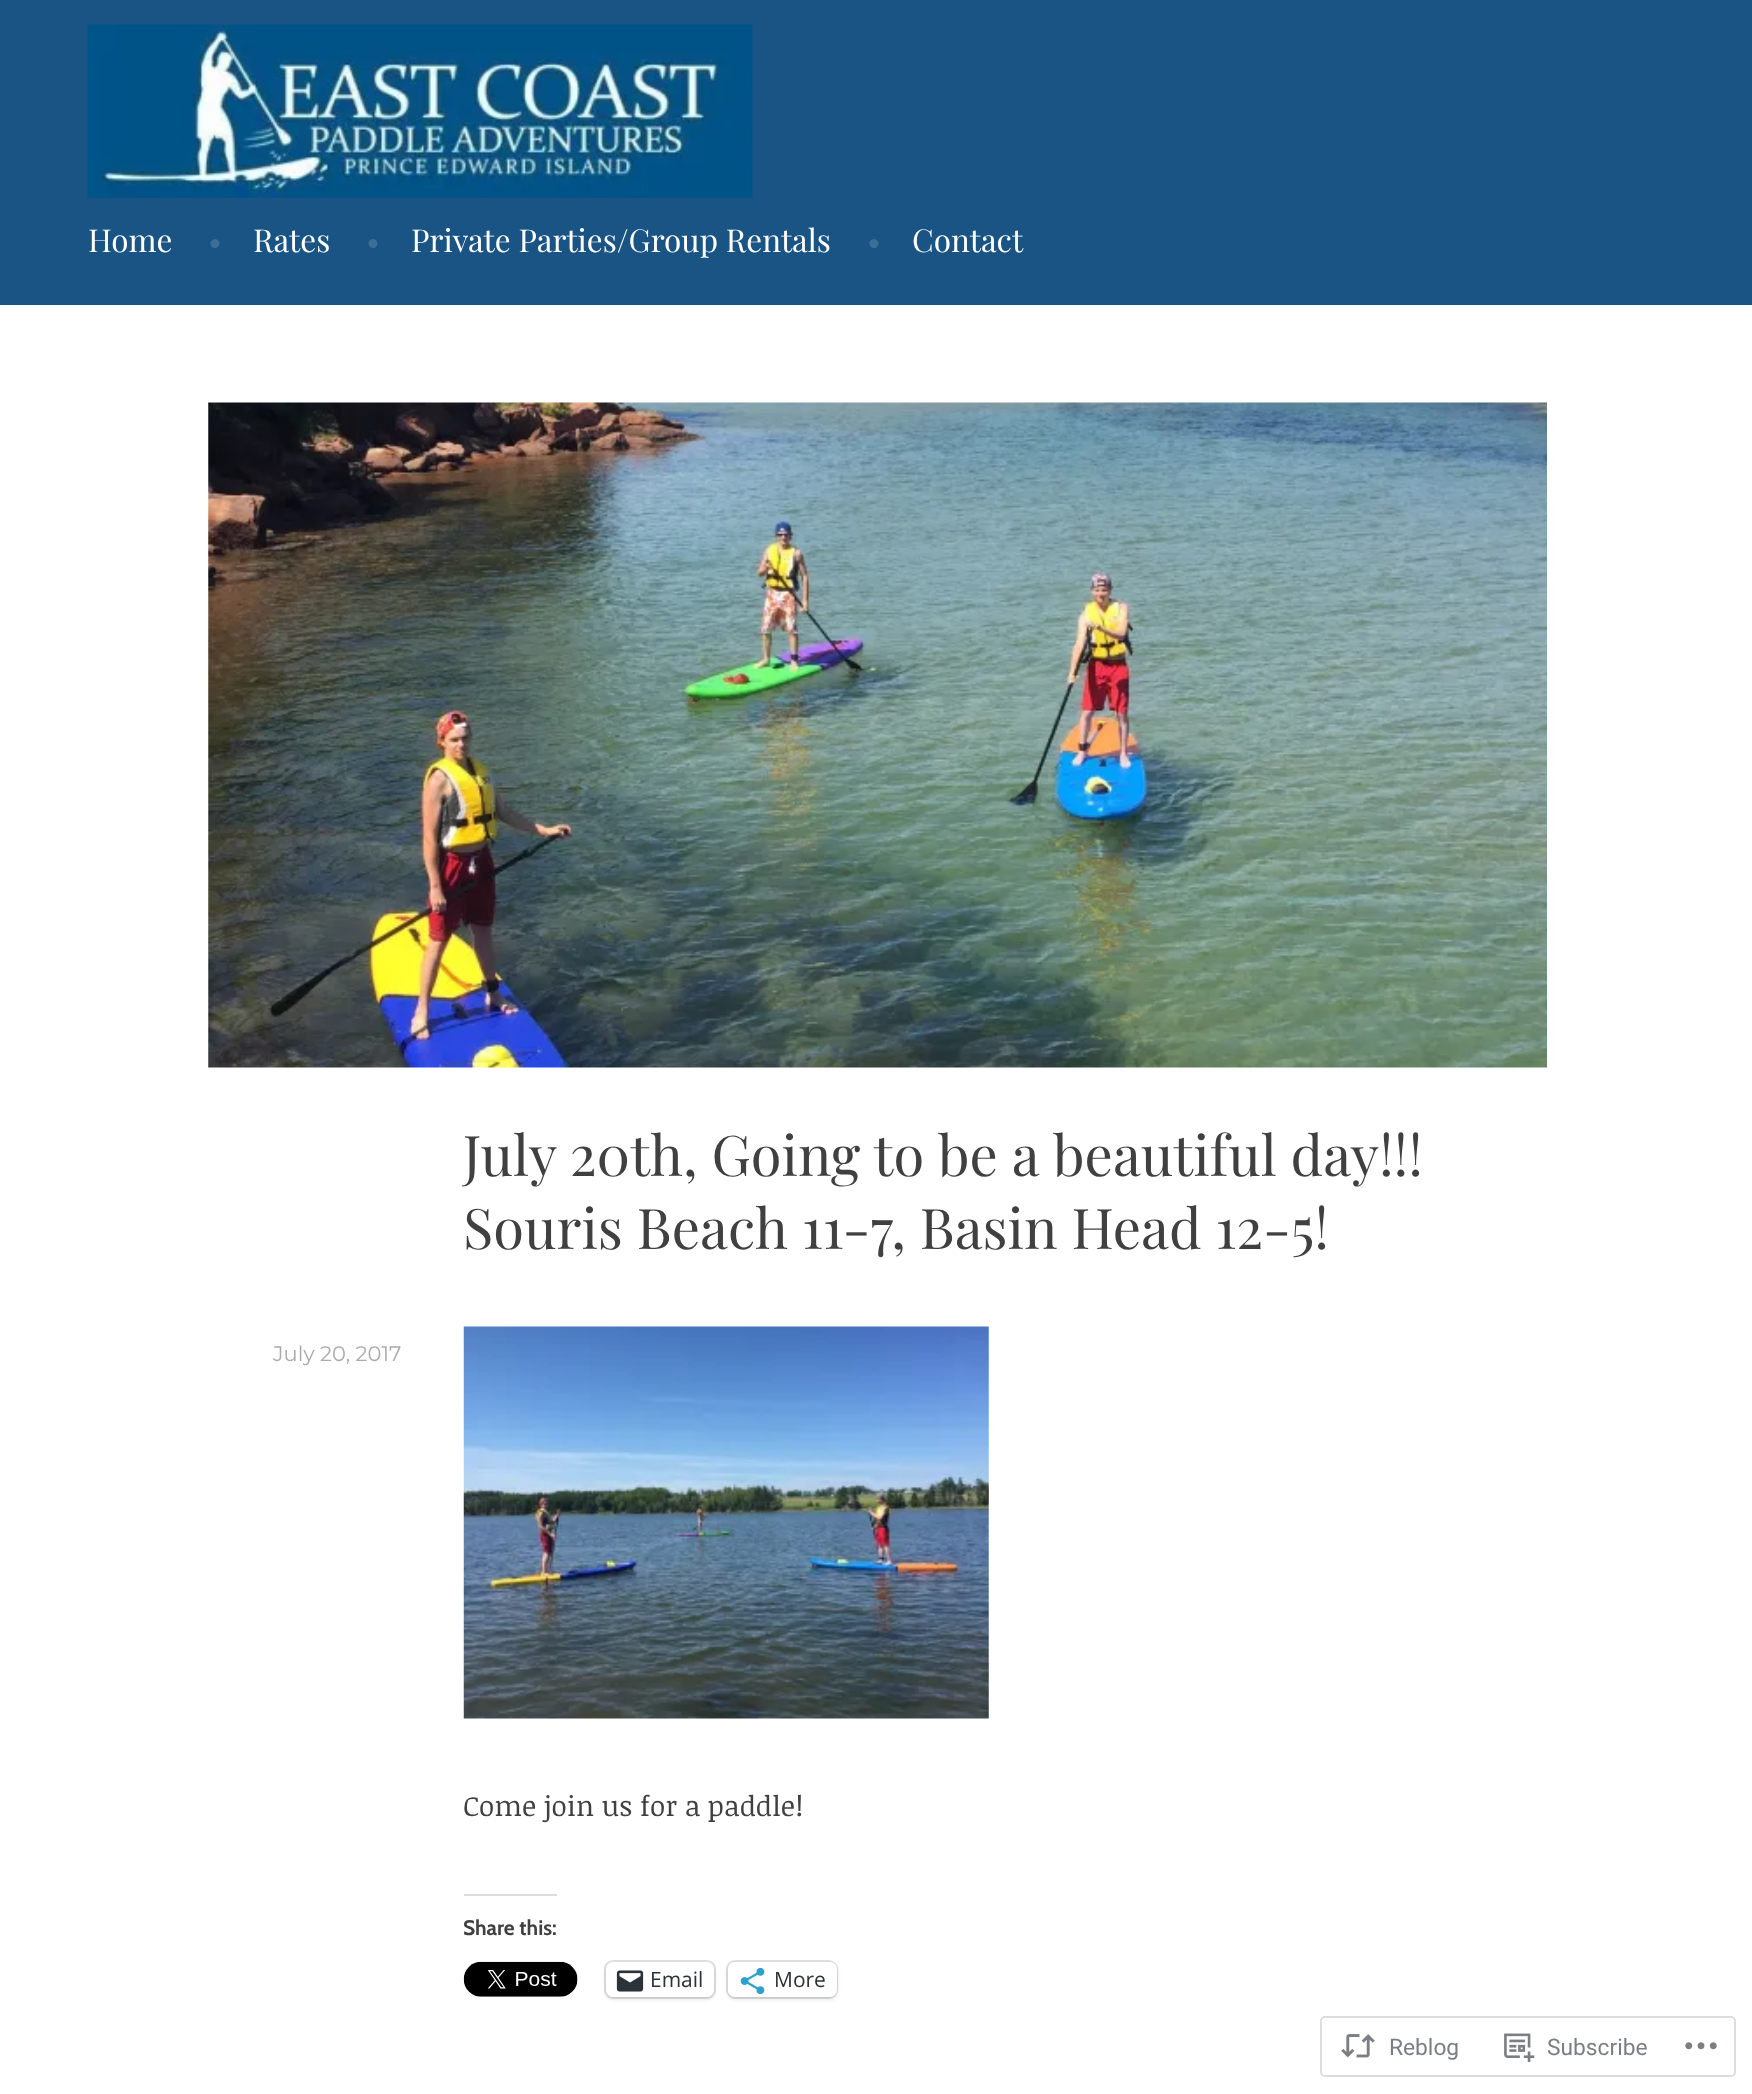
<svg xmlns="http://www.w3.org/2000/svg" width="1752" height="2094">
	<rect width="100%" height="100%" fill="#FFFFFF" />
	<rect x="0" y="0" width="1752" height="305" fill="#195484" />
	<image x="87" y="24" width="666" height="174" href="assets/img1.png" />
	<text x="88" y="252" font-family="Playfair Display" font-size="31.5" fill="#FFFFFF">Home</text>
	<text x="208" y="252" font-family="Playfair Display" font-size="31.5" fill="#3C6E96">•</text>
	<text x="253" y="252" font-family="Playfair Display" font-size="31.5" fill="#FFFFFF">Rates</text>
	<text x="366" y="252" font-family="Playfair Display" font-size="31.5" fill="#3C6E96">•</text>
	<text x="411" y="252" font-family="Playfair Display" font-size="31.5" fill="#FFFFFF">Private Parties/Group Rentals</text>
	<text x="867" y="252" font-family="Playfair Display" font-size="31.5" fill="#3C6E96">•</text>
	<text x="912" y="252" font-family="Playfair Display" font-size="31.5" fill="#FFFFFF">Contact</text>
	<image x="208" y="402" width="1339" height="666" href="assets/img2.png" />
	<g font-family="Playfair Display" font-size="56" fill="#404040">
		<text x="463" y="1176">July 20th, Going to be a beautiful day!!!</text>
		<text x="463" y="1249">Souris Beach 11-7, Basin Head 12-5!</text>
	</g>
	<text x="273" y="1361" font-family="Montserrat" font-size="21" fill="#AAAAAA">July 20, 2017</text>
	<image x="463" y="1326" width="526" height="393" href="assets/img3.png" />
	<text x="463" y="1816" font-family="Noticia Text" font-size="28" fill="#404040">Come join us for a paddle!</text>
	<rect x="464" y="1894" width="93" height="2" fill="#DCDCDE" />
	<text x="463" y="1935" font-family="Cabin" font-size="21" font-weight="700" fill="#404040">Share this:</text>
	<image x="463" y="1961" width="115" height="36" href="assets/img4.png" />
	<rect x="605" y="1961" width="110" height="37" rx="8" fill="none" stroke="#E0E0E0" stroke-width="2" />
	<rect x="606" y="1964" width="108" height="35" rx="7" fill="#000000" fill-opacity="0.12" filter="blur(2px)" />
	<rect x="606" y="1962" width="108" height="35" rx="7" fill="#FFFFFF" />
	<image x="616" y="1970" width="28" height="22" href="assets/img5.png" />
	<text x="650" y="1987" font-family="Open Sans" font-size="21" fill="#2C3338">Email</text>
	<rect x="727" y="1961" width="110" height="37" rx="8" fill="none" stroke="#E0E0E0" stroke-width="2" />
	<rect x="728" y="1964" width="109" height="35" rx="7" fill="#000000" fill-opacity="0.12" filter="blur(2px)" />
	<rect x="728" y="1962" width="109" height="35" rx="7" fill="#FFFFFF" />
	<image x="740" y="1967" width="25" height="28" href="assets/img6.png" />
	<text x="774" y="1987" font-family="Open Sans" font-size="21" fill="#2C3338">More</text>
	<rect x="1321" y="2017" width="414" height="59" rx="4" fill="none" stroke="#DDDDDF" stroke-width="2" />
	<image x="1341" y="2034" width="34" height="24" href="assets/img7.png" />
	<text x="1389" y="2055" font-family="Roboto" font-size="22.75" fill="#7B7F85">Reblog</text>
	<image x="1504" y="2033" width="31" height="29" href="assets/img8.png" />
	<text x="1547" y="2055" font-family="Roboto" font-size="22.75" fill="#7B7F85">Subscribe</text>
	<image x="1685" y="2042" width="32" height="8" href="assets/img9.png" />
</svg>
